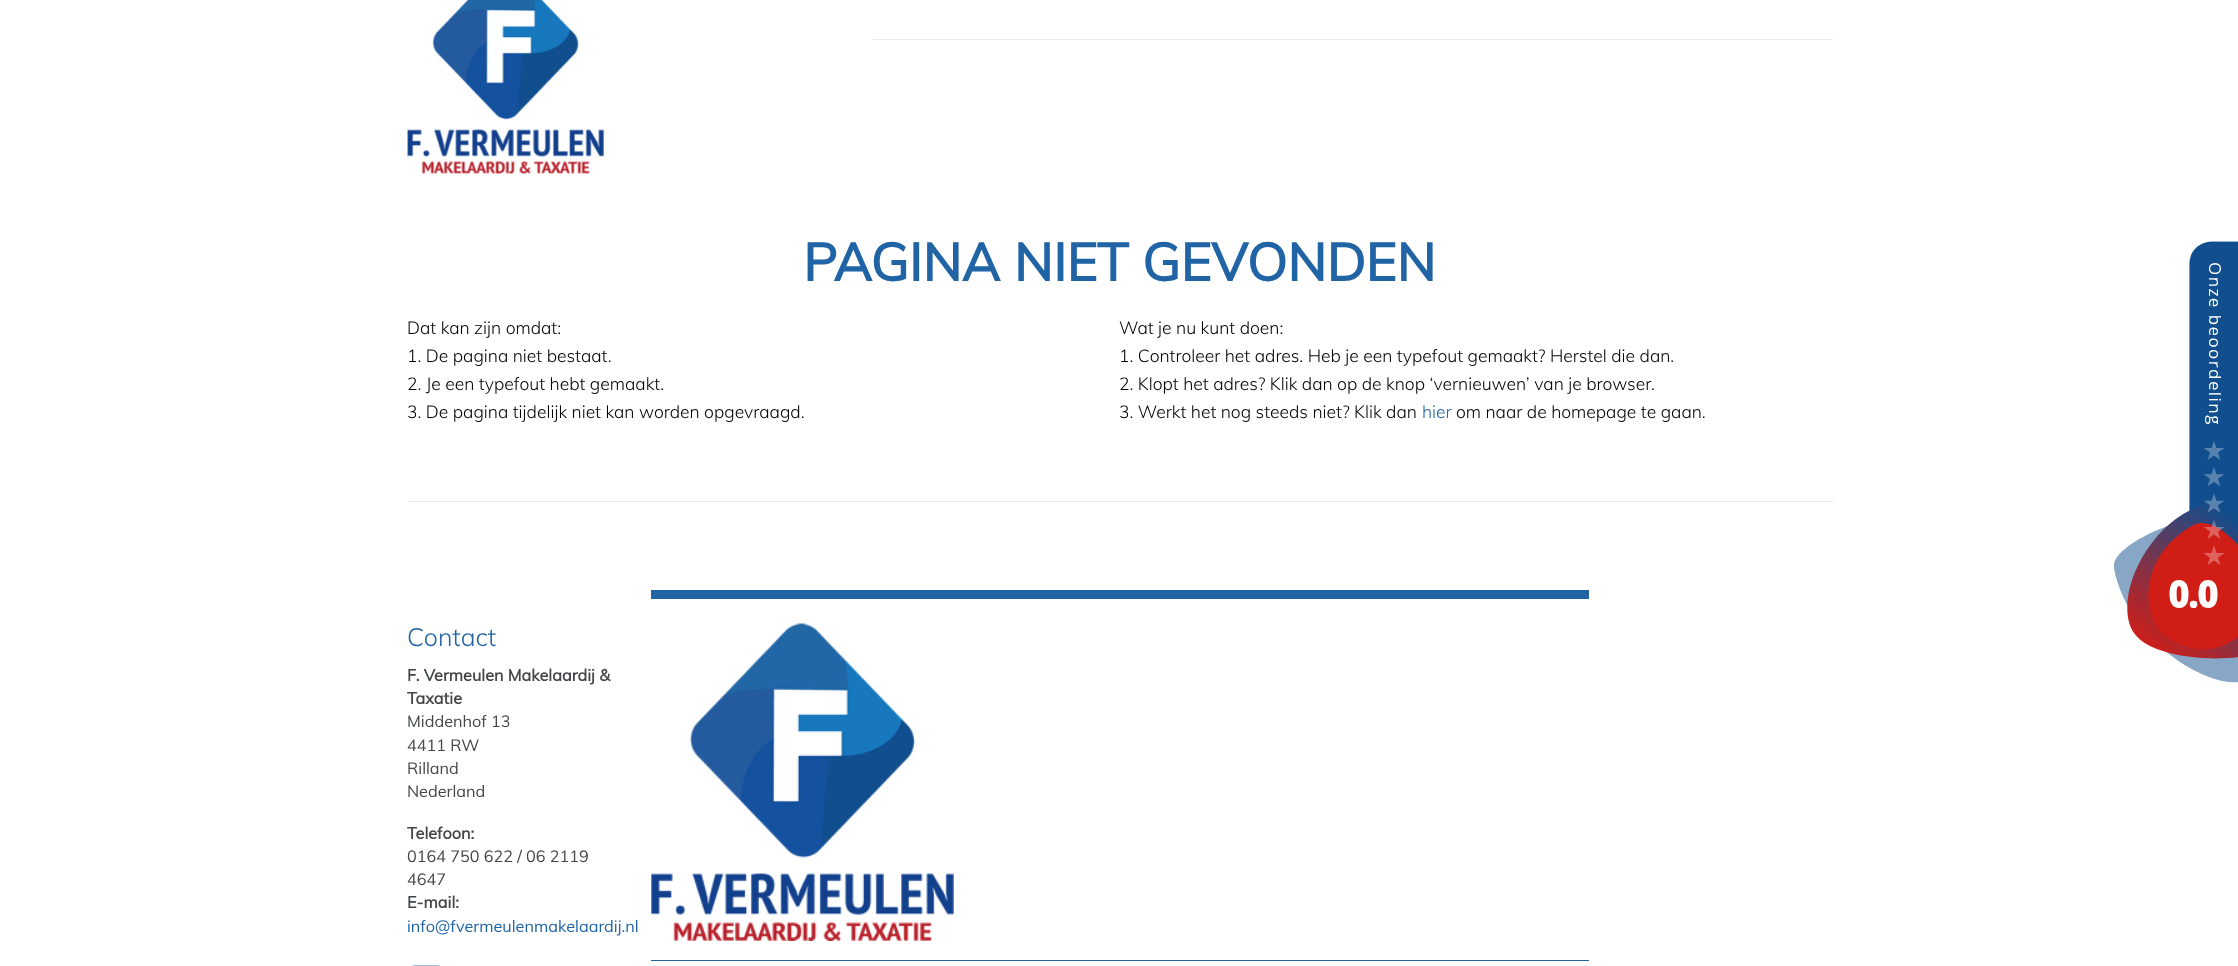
<svg xmlns="http://www.w3.org/2000/svg" width="2238" height="966">
	<rect width="100%" height="100%" fill="#FFFFFF" />
	<image x="407" y="0" width="197" height="174" href="assets/img1.png" />
	<rect x="873" y="39" width="960" height="1" fill="#EAEAEA" />
	<rect x="408" y="501" width="1425" height="1" fill="#E5E5E5" />
	<text x="803" y="281" font-family="Muli" font-size="52.5" font-weight="700" fill="#2064A6">PAGINA NIET GEVONDEN</text>
	<g font-family="Muli" font-size="17.5" font-weight="300" fill="#000000">
		<text x="407" y="334">Dat kan zijn omdat:</text>
		<text x="407" y="362">1. De pagina niet bestaat.</text>
		<text x="407" y="390">2. Je een typefout hebt gemaakt.</text>
		<text x="407" y="418">3. De pagina tijdelijk niet kan worden opgevraagd.</text>
		<text x="1119" y="334">Wat je nu kunt doen:</text>
		<text x="1119" y="362">1. Controleer het adres. Heb je een typefout gemaakt? Herstel die dan.</text>
		<text x="1119" y="390">2. Klopt het adres? Klik dan op de knop ‘vernieuwen’ van je browser.</text>
		<text x="1119" y="418">3. Werkt het nog steeds niet? Klik dan</text>
	</g>
	<text x="1422" y="418" font-family="Muli" font-size="17.5" font-weight="300" fill="#2064A6">hier</text>
	<text x="1456" y="418" font-family="Muli" font-size="17.5" font-weight="300" fill="#000000">om naar de homepage te gaan.</text>
	<image x="2114" y="241" width="124" height="442" href="assets/img2.png" />
	<text x="407" y="646" font-family="Muli" font-size="25" font-weight="300" fill="#2064A6">Contact</text>
	<g font-family="Muli" font-size="16.25" font-weight="700" fill="#43474A">
		<text x="407" y="681">F. Vermeulen Makelaardij &amp;</text>
		<text x="407" y="704">Taxatie</text>
	</g>
	<g font-family="Muli" font-size="16.25" fill="#43474A">
		<text x="407" y="727">Middenhof 13</text>
		<text x="407" y="751">4411 RW</text>
		<text x="407" y="774">Rilland</text>
		<text x="407" y="797">Nederland</text>
	</g>
	<text x="407" y="839" font-family="Muli" font-size="16.25" font-weight="700" fill="#43474A">Telefoon:</text>
	<g font-family="Muli" font-size="16.25" fill="#43474A">
		<text x="407" y="862">0164 750 622 / 06 2119</text>
		<text x="407" y="885">4647</text>
	</g>
	<text x="407" y="908" font-family="Muli" font-size="16.25" font-weight="700" fill="#43474A">E-mail:</text>
	<text x="407" y="932" font-family="Muli" font-size="16.25" fill="#2064A6">info@fvermeulenmakelaardij.nl</text>
	<image x="412" y="965" width="28" height="1" href="assets/img3.png" />
	<rect x="651" y="590" width="938" height="9" fill="#2064A6" />
	<rect x="651" y="960" width="938" height="1" fill="#2064A6" />
	<image x="651" y="623" width="303" height="318" href="assets/img4.png" />
</svg>
